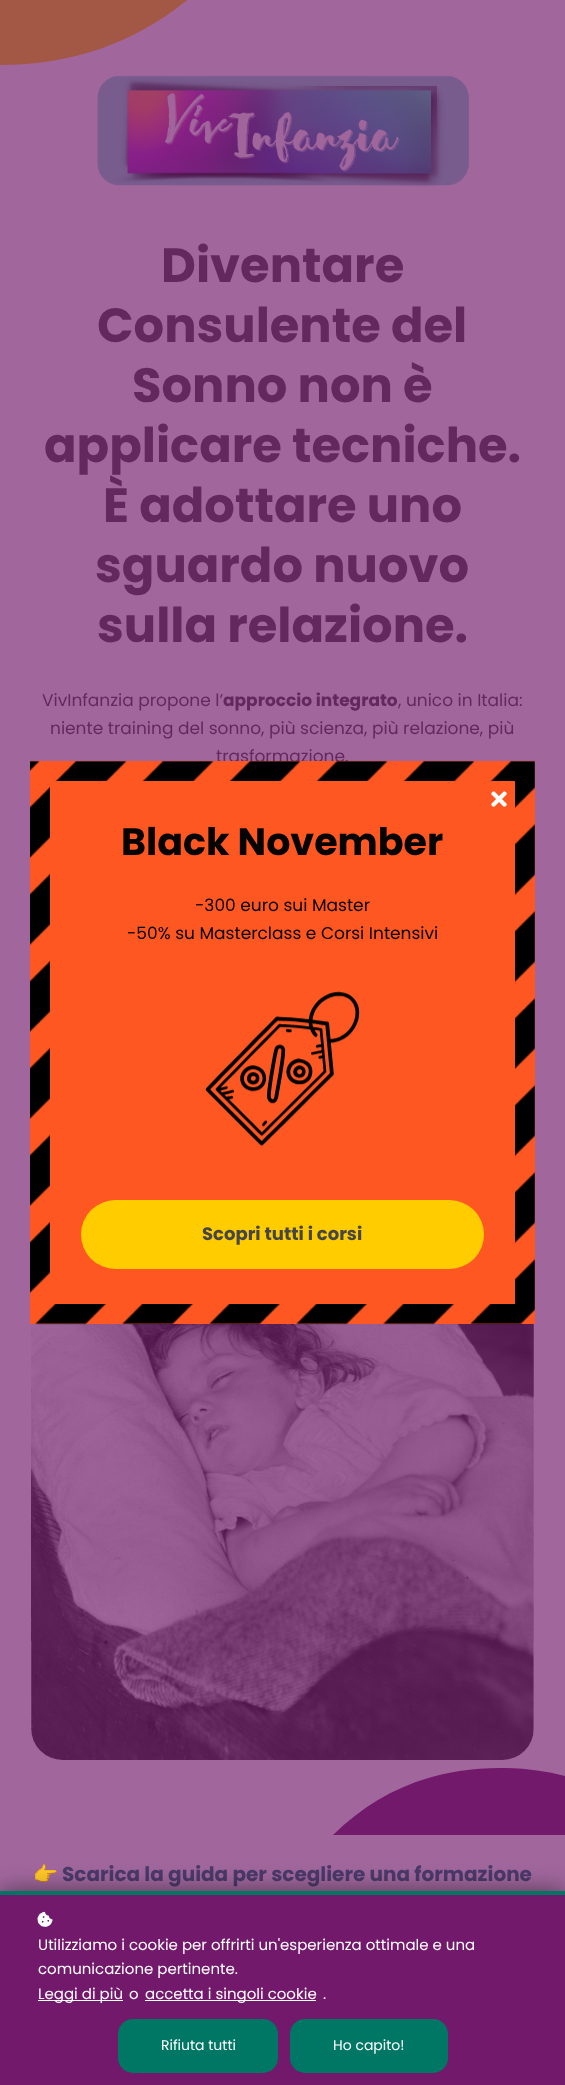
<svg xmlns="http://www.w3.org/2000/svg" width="565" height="2085">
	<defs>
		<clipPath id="clip1"><rect x="0" y="0" width="565" height="1835" /></clipPath>
	</defs>
	<rect width="100%" height="100%" fill="#A1679D" />
	<path d="M-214-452C-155-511-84-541 0-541C84-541 155-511 214-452C273-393 303-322 303-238C303-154 273-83 214-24C155 35 84 65 0 65C-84 65-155 35-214-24C-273-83-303-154-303-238C-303-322-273-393-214-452Z" fill="#A35846" />
	<image x="97" y="75" width="372" height="112" href="assets/img1.png" />
	<g font-family="Poppins" font-size="48" font-weight="700" fill="#63295F">
		<text x="161" y="282">Diventare</text>
		<text x="97" y="342">Consulente del</text>
		<text x="132" y="402">Sonno non è</text>
		<text x="44" y="462">applicare tecniche.</text>
		<text x="103" y="522">È adottare uno</text>
		<text x="95" y="582">sguardo nuovo</text>
		<text x="97" y="642">sulla relazione.</text>
	</g>
	<text x="42" y="706" font-family="Poppins" font-size="17" fill="#63295F">VivInfanzia propone l’</text>
	<text x="223" y="706" font-family="Poppins" font-size="17" font-weight="700" fill="#63295F">approccio integrato</text>
	<g font-family="Poppins" font-size="17" fill="#63295F">
		<text x="398" y="706">, unico in Italia:</text>
		<text x="50" y="734">niente training del sonno, più scienza, più relazione, più</text>
		<text x="216" y="762">trasformazione.</text>
	</g>
	<rect x="31" y="868" width="503" height="892" rx="31" fill="#A36A9F" />
	<image x="31" y="1324" width="503" height="436" href="assets/img2.png" />
	<g clip-path="url(#clip1)">
		<path d="M329 1839C376 1791 433 1768 500 1768C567 1768 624 1791 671 1839C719 1886 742 1943 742 2010C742 2077 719 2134 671 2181C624 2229 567 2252 500 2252C433 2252 376 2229 329 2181C281 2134 258 2077 258 2010C258 1943 281 1886 329 1839Z" fill="#72196C" />
	</g>
	<rect x="30" y="761" width="505" height="563" fill="#FF5722" />
	<image x="30" y="760" width="505" height="565" href="assets/img3.png" />
	<rect x="50" y="781" width="465" height="523" fill="#FF5722" />
	<image x="491" y="791" width="16" height="16" href="assets/img4.png" />
	<text x="121" y="855" font-family="Poppins" font-size="38" font-weight="700" fill="#040404">Black November</text>
	<g font-family="Poppins" font-size="17" fill="#040404">
		<text x="195" y="911">-300 euro sui Master</text>
		<text x="127" y="939">-50% su Masterclass e Corsi Intensivi</text>
	</g>
	<image x="205" y="991" width="155" height="156" href="assets/img5.png" />
	<rect x="81" y="1200" width="403" height="69" rx="34.5" fill="#FFCC00" />
	<text x="202" y="1240" font-family="Poppins" font-size="18" font-weight="700" fill="#474646">Scopri tutti i corsi</text>
	<text x="33" y="1881" font-family="Noto Color Emoji" font-size="20" font-weight="700" fill="#4A3A6A">👉</text>
	<text x="62" y="1881" font-family="Poppins" font-size="20" font-weight="700" fill="#4A3A6A">Scarica la guida per scegliere una formazione</text>
	<rect x="0" y="1891" width="565" height="194" fill="#000000" fill-opacity="0.5" filter="blur(12.5px)" />
	<rect x="0" y="1895" width="565" height="190" fill="#72196C" />
	<rect x="0" y="1891" width="565" height="4" fill="#007765" />
	<image x="37" y="1911" width="16" height="16" href="assets/img6.png" />
	<g font-family="Poppins" font-size="15" fill="#FFFFFF">
		<text x="38" y="1950">Utilizziamo i cookie per offrirti un'esperienza ottimale e una</text>
		<text x="38" y="1974">comunicazione pertinente.</text>
	</g>
	<rect x="38" y="2000" width="85" height="1" fill="#FFFFFF" />
	<g font-family="Poppins" font-size="15" fill="#FFFFFF">
		<text x="38" y="1999">Leggi di più</text>
		<text x="129" y="1999">o</text>
	</g>
	<rect x="145" y="2000" width="171" height="1" fill="#FFFFFF" />
	<g font-family="Poppins" font-size="15" fill="#FFFFFF">
		<text x="145" y="1999">accetta i singoli cookie</text>
		<text x="323" y="1999">.</text>
	</g>
	<rect x="118" y="2019" width="160" height="54" rx="15" fill="#007765" />
	<text x="161" y="2050" font-family="Poppins" font-size="14" fill="#FFFFFF">Rifiuta tutti</text>
	<rect x="290" y="2019" width="158" height="54" rx="15" fill="#007765" />
	<text x="333" y="2050" font-family="Poppins" font-size="14" fill="#FFFFFF">Ho capito!</text>
</svg>
